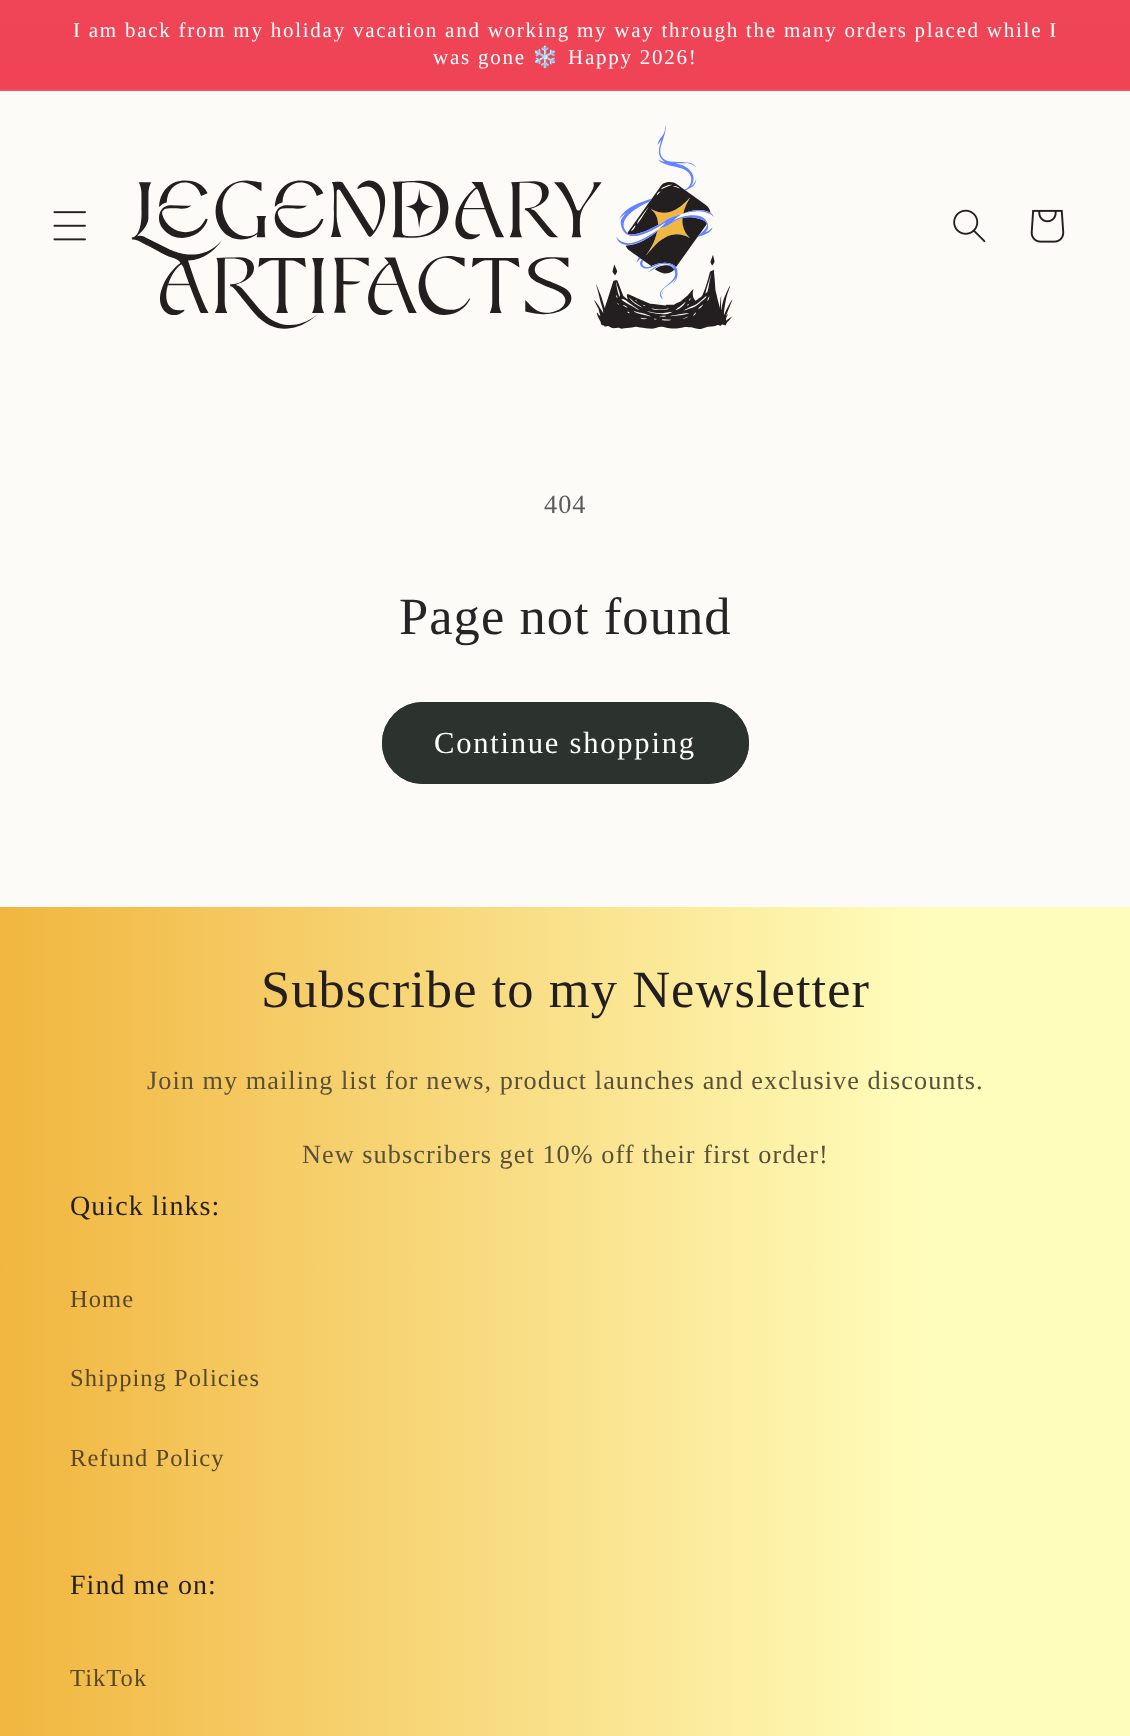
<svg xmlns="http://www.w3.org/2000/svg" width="1130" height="1736">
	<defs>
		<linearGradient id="g1" gradientUnits="userSpaceOnUse" x1="565" y1="0" x2="565" y2="1736"><stop offset="0" stop-color="#F04557" /><stop offset="1" stop-color="#DD2739" /></linearGradient>
		<linearGradient id="g2" gradientUnits="userSpaceOnUse" x1="0" y1="868" x2="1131" y2="868"><stop offset="0" stop-color="#F1B63F" /><stop offset="0.82" stop-color="#FFFDBC" /></linearGradient>
	</defs>
	<rect width="100%" height="100%" fill="#FDFBF7" />
	<rect x="0" y="0" width="1130" height="89" fill="url(#g1)" />
	<rect x="0" y="89" width="1130" height="2" fill="#F05263" />
	<g font-family="Liberation Serif" font-size="21" letter-spacing="1.75" fill="#FFFFFF">
		<text x="73" y="37">I am back from my holiday vacation and working my way through the many orders placed while I</text>
		<text x="433" y="64">was gone</text>
	</g>
	<text x="532" y="64" font-family="Noto Color Emoji" font-size="21" letter-spacing="1.75" fill="#FFFFFF">❄️</text>
	<text x="568" y="64" font-family="Liberation Serif" font-size="21" letter-spacing="1.75" fill="#FFFFFF">Happy 2026!</text>
	<image x="53" y="211" width="33" height="30" href="assets/img1.png" />
	<image x="131" y="125" width="602" height="204" href="assets/img2.png" />
	<image x="953" y="209" width="33" height="34" href="assets/img3.png" />
	<image x="1030" y="209" width="35" height="34" href="assets/img4.png" />
	<text x="544" y="513" font-family="Liberation Serif" font-size="26.25" letter-spacing="1.05" fill="#5B5B5A">404</text>
	<text x="399" y="634" font-family="Liberation Serif" font-size="52.5" letter-spacing="1.05" fill="#252525">Page not found</text>
	<rect x="382" y="702" width="367" height="82" rx="41" fill="#2C332F" />
	<rect x="383" y="703" width="365" height="80" rx="40" fill="none" stroke="#2C332F" stroke-width="2" />
	<text x="434" y="753" font-family="Liberation Serif" font-size="30.6" letter-spacing="1.75" fill="#FFFFFF">Continue shopping</text>
	<rect x="0" y="907" width="1130" height="281" fill="url(#g2)" />
	<text x="261" y="1007" font-family="Liberation Serif" font-size="52.5" letter-spacing="1.05" fill="#231F20">Subscribe to my Newsletter</text>
	<g font-family="Liberation Serif" font-size="26.25" letter-spacing="1.05" fill="#59503B">
		<text x="147" y="1089">Join my mailing list for news, product launches and exclusive discounts.</text>
		<text x="302" y="1163">New subscribers get 10% off their first order!</text>
	</g>
	<rect x="0" y="1188" width="1130" height="548" fill="url(#g2)" />
	<text x="70" y="1215" font-family="Liberation Serif" font-size="28" letter-spacing="1.05" fill="#231F20">Quick links:</text>
	<g font-family="Liberation Serif" font-size="24.5" letter-spacing="1.05" fill="#57472B">
		<text x="70" y="1307">Home</text>
		<text x="70" y="1386">Shipping Policies</text>
		<text x="70" y="1466">Refund Policy</text>
	</g>
	<text x="70" y="1594" font-family="Liberation Serif" font-size="28" letter-spacing="1.05" fill="#231F20">Find me on:</text>
	<text x="70" y="1686" font-family="Liberation Serif" font-size="24.5" letter-spacing="1.05" fill="#57472B">TikTok</text>
</svg>
